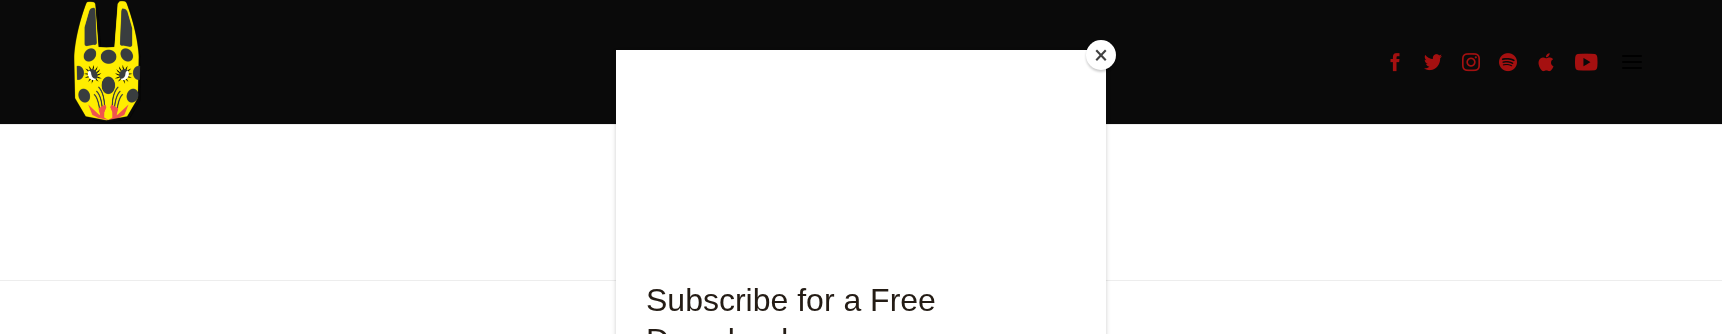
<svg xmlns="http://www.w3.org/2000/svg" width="1722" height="334">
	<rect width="100%" height="100%" fill="#FFFFFF" />
	<rect x="0" y="0" width="1722" height="124" fill="#0A0A0A" />
	<image x="74" y="0" width="67" height="123" href="assets/img1.png" />
	<image x="1390" y="53" width="10" height="19" href="assets/img2.png" />
	<image x="1424" y="54" width="18" height="17" href="assets/img3.png" />
	<image x="1462" y="53" width="18" height="19" href="assets/img4.png" />
	<image x="1499" y="53" width="18" height="19" href="assets/img5.png" />
	<image x="1538" y="53" width="16" height="19" href="assets/img6.png" />
	<image x="1575" y="53" width="23" height="18" href="assets/img7.png" />
	<rect x="1622" y="55" width="20" height="2" rx="1" fill="#000000" />
	<rect x="1622" y="61" width="20" height="2" rx="1" fill="#000000" />
	<rect x="1622" y="67" width="20" height="2" rx="1" fill="#000000" />
	<rect x="0" y="124" width="1722" height="1" fill="#EDEDED" />
	<rect x="0" y="280" width="1722" height="1" fill="#EDEDED" />
	<rect x="616" y="52" width="490" height="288" fill="#000000" fill-opacity="0.2" filter="blur(2px)" />
	<image x="616" y="50" width="490" height="284" href="assets/img8.png" />
	<rect x="1086" y="42" width="30" height="30" rx="15" fill="#000000" fill-opacity="0.2" filter="blur(1px)" />
	<circle cx="1101" cy="55" r="15" fill="#FFFFFF" />
	<path d="M1105 49.5L1106.5 51L1097 61L1095.5 59.5Z" fill="#414141" />
	<path d="M1095.5 51L1097 49.5L1106.5 59.5L1105 61Z" fill="#414141" />
</svg>
